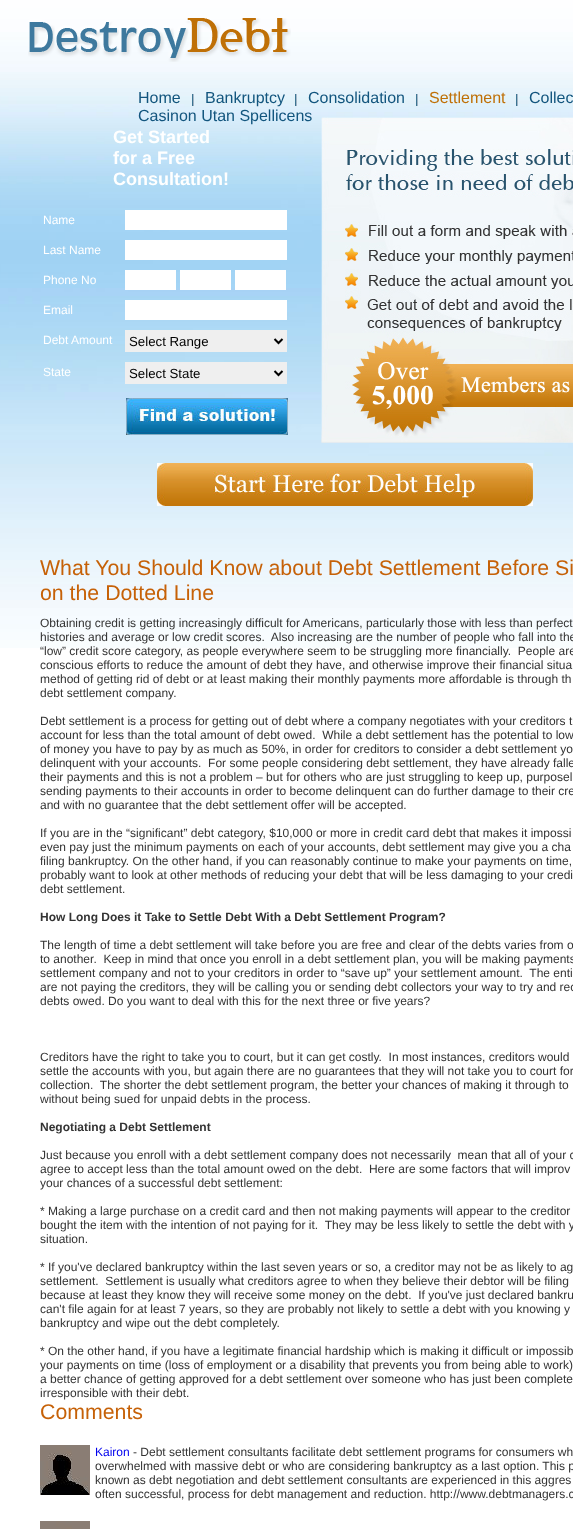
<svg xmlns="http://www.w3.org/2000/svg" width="573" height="1529">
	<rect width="100%" height="100%" fill="#FFFFFF" />
	<image x="0" y="456" width="573" height="192" href="assets/img1.png" />
	<image x="0" y="0" width="573" height="456" href="assets/img2.png" />
	<image x="28" y="18" width="263" height="44" href="assets/img3.png" />
	<text x="138" y="103" font-family="Liberation Sans" font-size="16" fill="#12557E">Home</text>
	<image x="192" y="94" width="2" height="12" href="assets/img4.png" />
	<text x="205" y="103" font-family="Liberation Sans" font-size="16" fill="#12557E">Bankruptcy</text>
	<image x="295" y="94" width="2" height="12" href="assets/img4.png" />
	<text x="308" y="103" font-family="Liberation Sans" font-size="16" fill="#12557E">Consolidation</text>
	<image x="416" y="94" width="2" height="12" href="assets/img4.png" />
	<text x="429" y="103" font-family="Liberation Sans" font-size="16" fill="#BF7007">Settlement</text>
	<image x="516" y="94" width="2" height="12" href="assets/img4.png" />
	<g font-family="Liberation Sans" font-size="16" fill="#12557E">
		<text x="529" y="103">Collec</text>
		<text x="138" y="121">Casinon Utan Spellicens</text>
	</g>
	<g font-family="Liberation Sans" font-size="18" font-weight="700" fill="#FFFFFF">
		<text x="113" y="143">Get Started</text>
		<text x="113" y="164">for a Free</text>
		<text x="113" y="185">Consultation!</text>
	</g>
	<text x="43" y="224" font-family="Liberation Sans" font-size="12" fill="#FFFFFF">Name</text>
	<rect x="125" y="210" width="162" height="20" fill="#FFFFFF" />
	<text x="43" y="254" font-family="Liberation Sans" font-size="12" fill="#FFFFFF">Last Name</text>
	<rect x="125" y="240" width="162" height="20" fill="#FFFFFF" />
	<text x="43" y="284" font-family="Liberation Sans" font-size="12" fill="#FFFFFF">Phone No</text>
	<rect x="125" y="270" width="51" height="20" fill="#FFFFFF" />
	<rect x="180" y="270" width="51" height="20" fill="#FFFFFF" />
	<rect x="235" y="270" width="51" height="20" fill="#FFFFFF" />
	<text x="43" y="314" font-family="Liberation Sans" font-size="12" fill="#FFFFFF">Email</text>
	<rect x="125" y="300" width="162" height="20" fill="#FFFFFF" />
	<text x="43" y="344" font-family="Liberation Sans" font-size="12" fill="#FFFFFF">Debt Amount</text>
	<rect x="125" y="330" width="162" height="22" fill="#EFEFEF" />
	<path d="M274.5 339L278.5 343L282.5 339" fill="none" stroke="#000000" stroke-width="2" />
	<text x="129" y="346" font-family="Liberation Sans" font-size="13.25" fill="#000000">Select Range</text>
	<text x="43" y="376" font-family="Liberation Sans" font-size="12" fill="#FFFFFF">State</text>
	<rect x="125" y="362" width="162" height="22" fill="#EFEFEF" />
	<path d="M274.5 371L278.5 375L282.5 371" fill="none" stroke="#000000" stroke-width="2" />
	<text x="129" y="378" font-family="Liberation Sans" font-size="13.25" fill="#000000">Select State</text>
	<image x="126" y="398" width="162" height="37" href="assets/img5.png" />
	<image x="321" y="117" width="252" height="326" href="assets/img6.png" />
	<image x="157" y="463" width="376" height="43" href="assets/img7.png" />
	<g font-family="Liberation Sans" font-size="21.3" fill="#C66107">
		<text x="40" y="575">What You Should Know about Debt Settlement Before Si</text>
		<text x="40" y="600">on the Dotted Line</text>
	</g>
	<g font-family="Liberation Sans" font-size="12" fill="#333333">
		<text x="40" y="627">Obtaining credit is getting increasingly difficult for Americans, particularly those with less than perfect</text>
		<text x="40" y="641" xml:space="preserve">histories and average or low credit scores.  Also increasing are the number of people who fall into the</text>
		<text x="40" y="655" xml:space="preserve">“low” credit score category, as people everywhere seem to be struggling more financially.  People are</text>
		<text x="40" y="669">conscious efforts to reduce the amount of debt they have, and otherwise improve their financial situa</text>
		<text x="40" y="683">method of getting rid of debt or at least making their monthly payments more affordable is through th</text>
		<text x="40" y="697">debt settlement company.</text>
		<text x="40" y="725">Debt settlement is a process for getting out of debt where a company negotiates with your creditors t</text>
		<text x="40" y="739" xml:space="preserve">account for less than the total amount of debt owed.  While a debt settlement has the potential to low</text>
		<text x="40" y="753">of money you have to pay by as much as 50%, in order for creditors to consider a debt settlement yo</text>
		<text x="40" y="767" xml:space="preserve">delinquent with your accounts.  For some people considering debt settlement, they have already falle</text>
		<text x="40" y="781">their payments and this is not a problem – but for others who are just struggling to keep up, purposel</text>
		<text x="40" y="795">sending payments to their accounts in order to become delinquent can do further damage to their cre</text>
		<text x="40" y="809">and with no guarantee that the debt settlement offer will be accepted.</text>
		<text x="40" y="837">If you are in the “significant” debt category, $10,000 or more in credit card debt that makes it impossi</text>
		<text x="40" y="851">even pay just the minimum payments on each of your accounts, debt settlement may give you a cha</text>
		<text x="40" y="865">filing bankruptcy. On the other hand, if you can reasonably continue to make your payments on time,</text>
		<text x="40" y="879">probably want to look at other methods of reducing your debt that will be less damaging to your credi</text>
		<text x="40" y="893">debt settlement.</text>
	</g>
	<text x="40" y="921" font-family="Liberation Sans" font-size="12" font-weight="700" fill="#333333">How Long Does it Take to Settle Debt With a Debt Settlement Program?</text>
	<g font-family="Liberation Sans" font-size="12" fill="#333333">
		<text x="40" y="949">The length of time a debt settlement will take before you are free and clear of the debts varies from o</text>
		<text x="40" y="963" xml:space="preserve">to another.  Keep in mind that once you enroll in a debt settlement plan, you will be making payments</text>
		<text x="40" y="977" xml:space="preserve">settlement company and not to your creditors in order to “save up” your settlement amount.  The enti</text>
		<text x="40" y="991">are not paying the creditors, they will be calling you or sending debt collectors your way to try and rec</text>
		<text x="40" y="1005">debts owed. Do you want to deal with this for the next three or five years?</text>
		<text x="40" y="1061" xml:space="preserve">Creditors have the right to take you to court, but it can get costly.  In most instances, creditors would</text>
		<text x="40" y="1075">settle the accounts with you, but again there are no guarantees that they will not take you to court for</text>
		<text x="40" y="1089" xml:space="preserve">collection.  The shorter the debt settlement program, the better your chances of making it through to</text>
		<text x="40" y="1103">without being sued for unpaid debts in the process.</text>
	</g>
	<text x="40" y="1131" font-family="Liberation Sans" font-size="12" font-weight="700" fill="#333333">Negotiating a Debt Settlement</text>
	<g font-family="Liberation Sans" font-size="12" fill="#333333">
		<text x="40" y="1159" xml:space="preserve">Just because you enroll with a debt settlement company does not necessarily  mean that all of your c</text>
		<text x="40" y="1173" xml:space="preserve">agree to accept less than the total amount owed on the debt.  Here are some factors that will improv</text>
		<text x="40" y="1187">your chances of a successful debt settlement:</text>
		<text x="40" y="1215">* Making a large purchase on a credit card and then not making payments will appear to the creditor</text>
		<text x="40" y="1229" xml:space="preserve">bought the item with the intention of not paying for it.  They may be less likely to settle the debt with y</text>
		<text x="40" y="1243">situation.</text>
		<text x="40" y="1271">* If you've declared bankruptcy within the last seven years or so, a creditor may not be as likely to ag</text>
		<text x="40" y="1285" xml:space="preserve">settlement.  Settlement is usually what creditors agree to when they believe their debtor will be filing</text>
		<text x="40" y="1299" xml:space="preserve">because at least they know they will receive some money on the debt.  If you've just declared bankru</text>
		<text x="40" y="1313">can't file again for at least 7 years, so they are probably not likely to settle a debt with you knowing y</text>
		<text x="40" y="1327">bankruptcy and wipe out the debt completely.</text>
		<text x="40" y="1355">* On the other hand, if you have a legitimate financial hardship which is making it difficult or impossib</text>
		<text x="40" y="1369">your payments on time (loss of employment or a disability that prevents you from being able to work)</text>
		<text x="40" y="1383">a better chance of getting approved for a debt settlement over someone who has just been complete</text>
		<text x="40" y="1397">irresponsible with their debt.</text>
	</g>
	<text x="40" y="1419" font-family="Liberation Sans" font-size="21.3" fill="#C66107">Comments</text>
	<image x="40" y="1445" width="50" height="50" href="assets/img8.png" />
	<text x="95" y="1456" font-family="Liberation Sans" font-size="12" fill="#0000EE">Kairon</text>
	<g font-family="Liberation Sans" font-size="12" fill="#333333">
		<text x="133" y="1456">- Debt settlement consultants facilitate debt settlement programs for consumers wh</text>
		<text x="95" y="1470">overwhelmed with massive debt or who are considering bankruptcy as a last option. This p</text>
		<text x="95" y="1484">known as debt negotiation and debt settlement consultants are experienced in this aggres</text>
		<text x="95" y="1498">often successful, process for debt management and reduction. http://www.debtmanagers.c</text>
	</g>
	<image x="40" y="1521" width="50" height="8" href="assets/img9.png" />
</svg>
